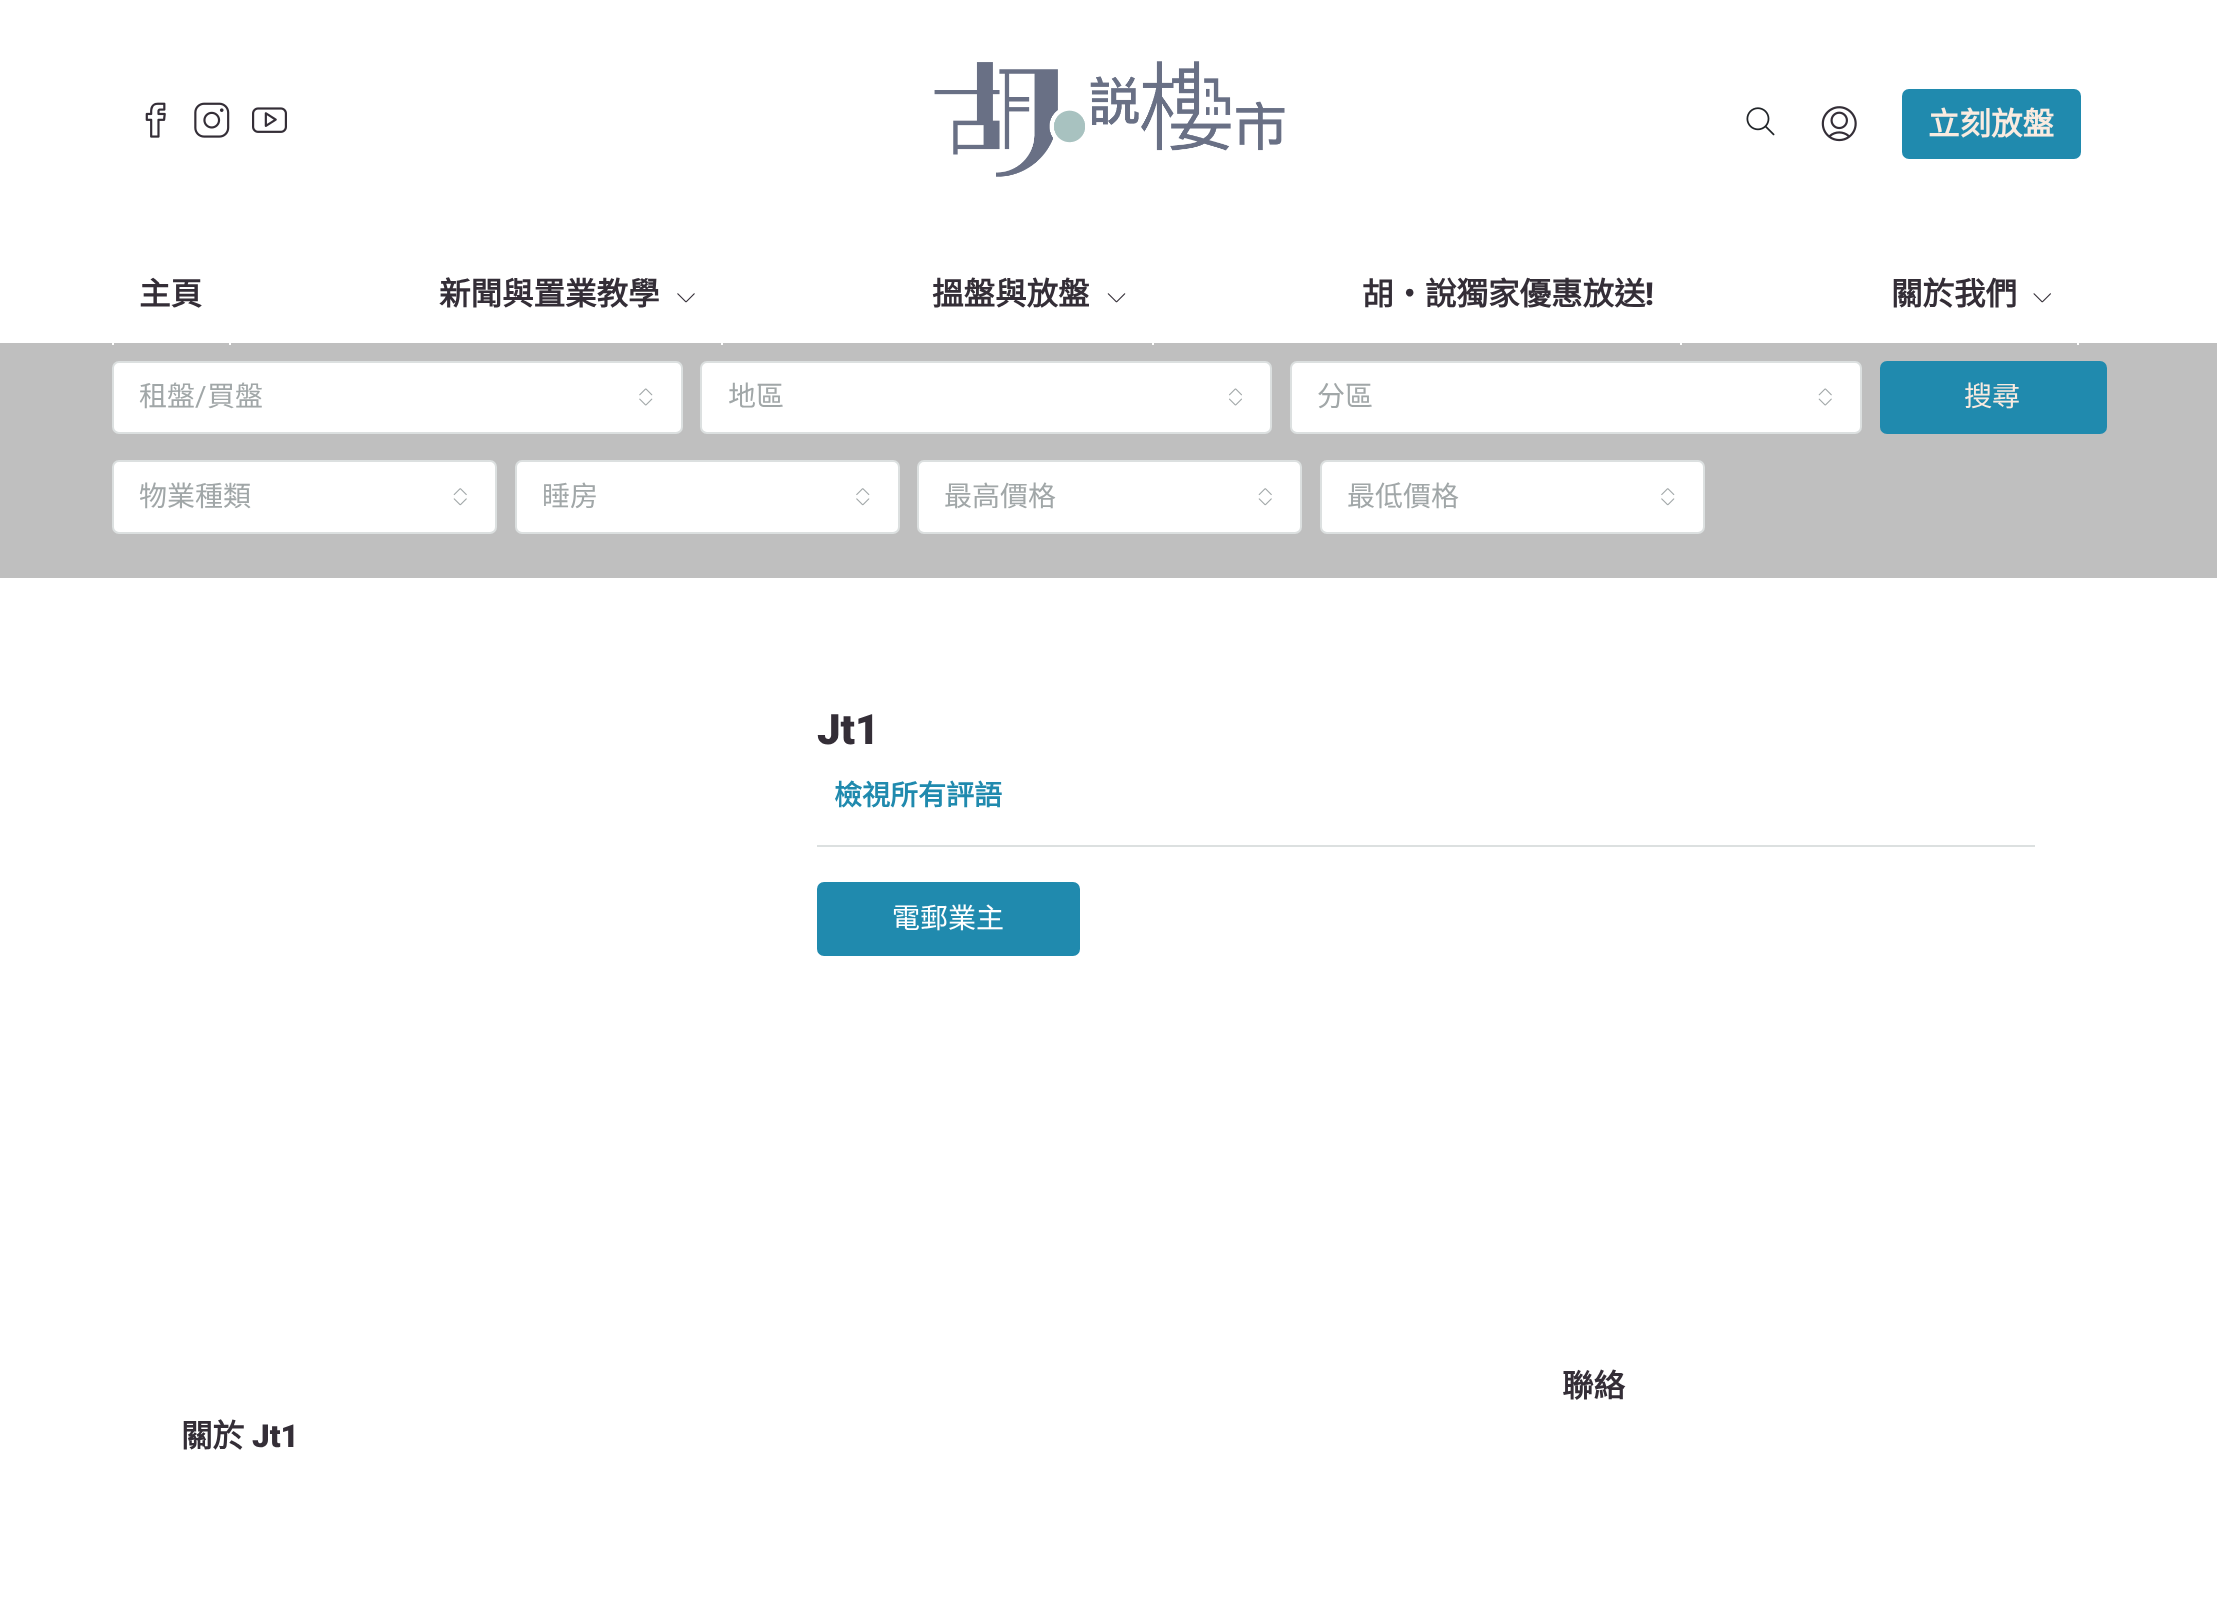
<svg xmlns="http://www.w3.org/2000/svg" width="2217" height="1611">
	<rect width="100%" height="100%" fill="#FFFFFF" />
	<image x="145" y="102" width="21" height="36" href="assets/img1.png" />
	<image x="194" y="102" width="36" height="36" href="assets/img2.png" />
	<image x="252" y="107" width="35" height="26" href="assets/img3.png" />
	<image x="934" y="61" width="351" height="116" href="assets/img4.png" />
	<image x="1746" y="107" width="29" height="29" href="assets/img5.png" />
	<image x="1821" y="106" width="36" height="36" href="assets/img6.png" />
	<rect x="1902" y="89" width="179" height="70" rx="7" fill="#208AAE" />
	<text x="1928" y="135" font-family="Noto Sans CJK HK" font-size="31.5" font-weight="700" fill="#F9EBE0">立刻放盤</text>
	<rect x="0" y="343" width="2217" height="235" fill="#BFBFBF" />
	<rect x="229" y="343" width="2" height="2" fill="#FFFFFF" />
	<rect x="112" y="343" width="2" height="2" fill="#FFFFFF" />
	<text x="139" y="305" font-family="Noto Sans CJK HK" font-size="31.5" font-weight="700" fill="#342E37">主頁</text>
	<rect x="721" y="343" width="2" height="2" fill="#FFFFFF" />
	<text x="439" y="305" font-family="Noto Sans CJK HK" font-size="31.5" font-weight="700" fill="#342E37">新聞與置業教學</text>
	<image x="677" y="293" width="18" height="10" href="assets/img7.png" />
	<rect x="1152" y="343" width="2" height="2" fill="#FFFFFF" />
	<text x="932" y="305" font-family="Noto Sans CJK HK" font-size="31.5" font-weight="700" fill="#342E37">搵盤與放盤</text>
	<image x="1107" y="293" width="19" height="10" href="assets/img8.png" />
	<rect x="1680" y="343" width="2" height="2" fill="#FFFFFF" />
	<text x="1362" y="305" font-family="Noto Sans CJK HK" font-size="31.5" font-weight="700" fill="#342E37">胡‧說獨家優惠放送</text>
	<text x="1645" y="305" font-family="Roboto" font-size="31.5" font-weight="900" fill="#342E37">!</text>
	<rect x="2077" y="343" width="2" height="2" fill="#FFFFFF" />
	<text x="1891" y="305" font-family="Noto Sans CJK HK" font-size="31.5" font-weight="700" fill="#342E37">關於我們</text>
	<image x="2033" y="293" width="18" height="10" href="assets/img9.png" />
	<rect x="113" y="362" width="569" height="71" rx="6" fill="#FFFFFF" stroke="#DCE0E0" stroke-width="2" />
	<text x="139" y="406" font-family="Noto Sans CJK HK" font-size="28" fill="#A1A7A8">租盤</text>
	<text x="195" y="406" font-family="Roboto" font-size="28" fill="#A1A7A8">/</text>
	<text x="207" y="406" font-family="Noto Sans CJK HK" font-size="28" fill="#A1A7A8">買盤</text>
	<image x="639" y="388" width="14" height="18" href="assets/img10.png" />
	<rect x="701" y="362" width="570" height="71" rx="6" fill="#FFFFFF" stroke="#DCE0E0" stroke-width="2" />
	<text x="728" y="406" font-family="Noto Sans CJK HK" font-size="28" fill="#A1A7A8">地區</text>
	<image x="1229" y="388" width="13" height="18" href="assets/img11.png" />
	<rect x="1291" y="362" width="570" height="71" rx="6" fill="#FFFFFF" stroke="#DCE0E0" stroke-width="2" />
	<text x="1317" y="406" font-family="Noto Sans CJK HK" font-size="28" fill="#A1A7A8">分區</text>
	<image x="1818" y="388" width="14" height="18" href="assets/img12.png" />
	<rect x="1881" y="362" width="225" height="71" rx="6" fill="#208AAE" stroke="#208AAE" stroke-width="2" />
	<text x="1964" y="406" font-family="Noto Sans CJK HK" font-size="28" fill="#F9EBE0">搜尋</text>
	<rect x="113" y="461" width="383" height="72" rx="6" fill="#FFFFFF" stroke="#DCE0E0" stroke-width="2" />
	<text x="139" y="506" font-family="Noto Sans CJK HK" font-size="28" fill="#A1A7A8">物業種類</text>
	<image x="453" y="488" width="14" height="18" href="assets/img13.png" />
	<rect x="516" y="461" width="383" height="72" rx="6" fill="#FFFFFF" stroke="#DCE0E0" stroke-width="2" />
	<text x="542" y="506" font-family="Noto Sans CJK HK" font-size="28" fill="#A1A7A8">睡房</text>
	<image x="856" y="488" width="14" height="18" href="assets/img14.png" />
	<rect x="918" y="461" width="383" height="72" rx="6" fill="#FFFFFF" stroke="#DCE0E0" stroke-width="2" />
	<text x="944" y="506" font-family="Noto Sans CJK HK" font-size="28" fill="#A1A7A8">最高價格</text>
	<image x="1258" y="488" width="14" height="18" href="assets/img13.png" />
	<rect x="1321" y="461" width="383" height="72" rx="6" fill="#FFFFFF" stroke="#DCE0E0" stroke-width="2" />
	<text x="1347" y="506" font-family="Noto Sans CJK HK" font-size="28" fill="#A1A7A8">最低價格</text>
	<image x="1661" y="488" width="14" height="18" href="assets/img14.png" />
	<rect x="817" y="845" width="1218" height="2" fill="#DCE0E0" />
	<text x="817" y="744" font-family="Roboto" font-size="42" font-weight="900" fill="#342E37">Jt1</text>
	<text x="834" y="805" font-family="Noto Sans CJK HK" font-size="28" font-weight="700" fill="#208AAE">檢視所有評語</text>
	<rect x="818" y="883" width="261" height="72" rx="6" fill="#208AAE" stroke="#208AAE" stroke-width="2" />
	<text x="892" y="928" font-family="Noto Sans CJK HK" font-size="28" fill="#FFFFFF">電郵業主</text>
	<g font-family="Noto Sans CJK HK" font-size="31.5" font-weight="700" fill="#342E37">
		<text x="1562" y="1397">聯絡</text>
		<text x="181" y="1447">關於</text>
	</g>
	<text x="252" y="1447" font-family="Roboto" font-size="31.5" font-weight="900" fill="#342E37">Jt1</text>
</svg>
